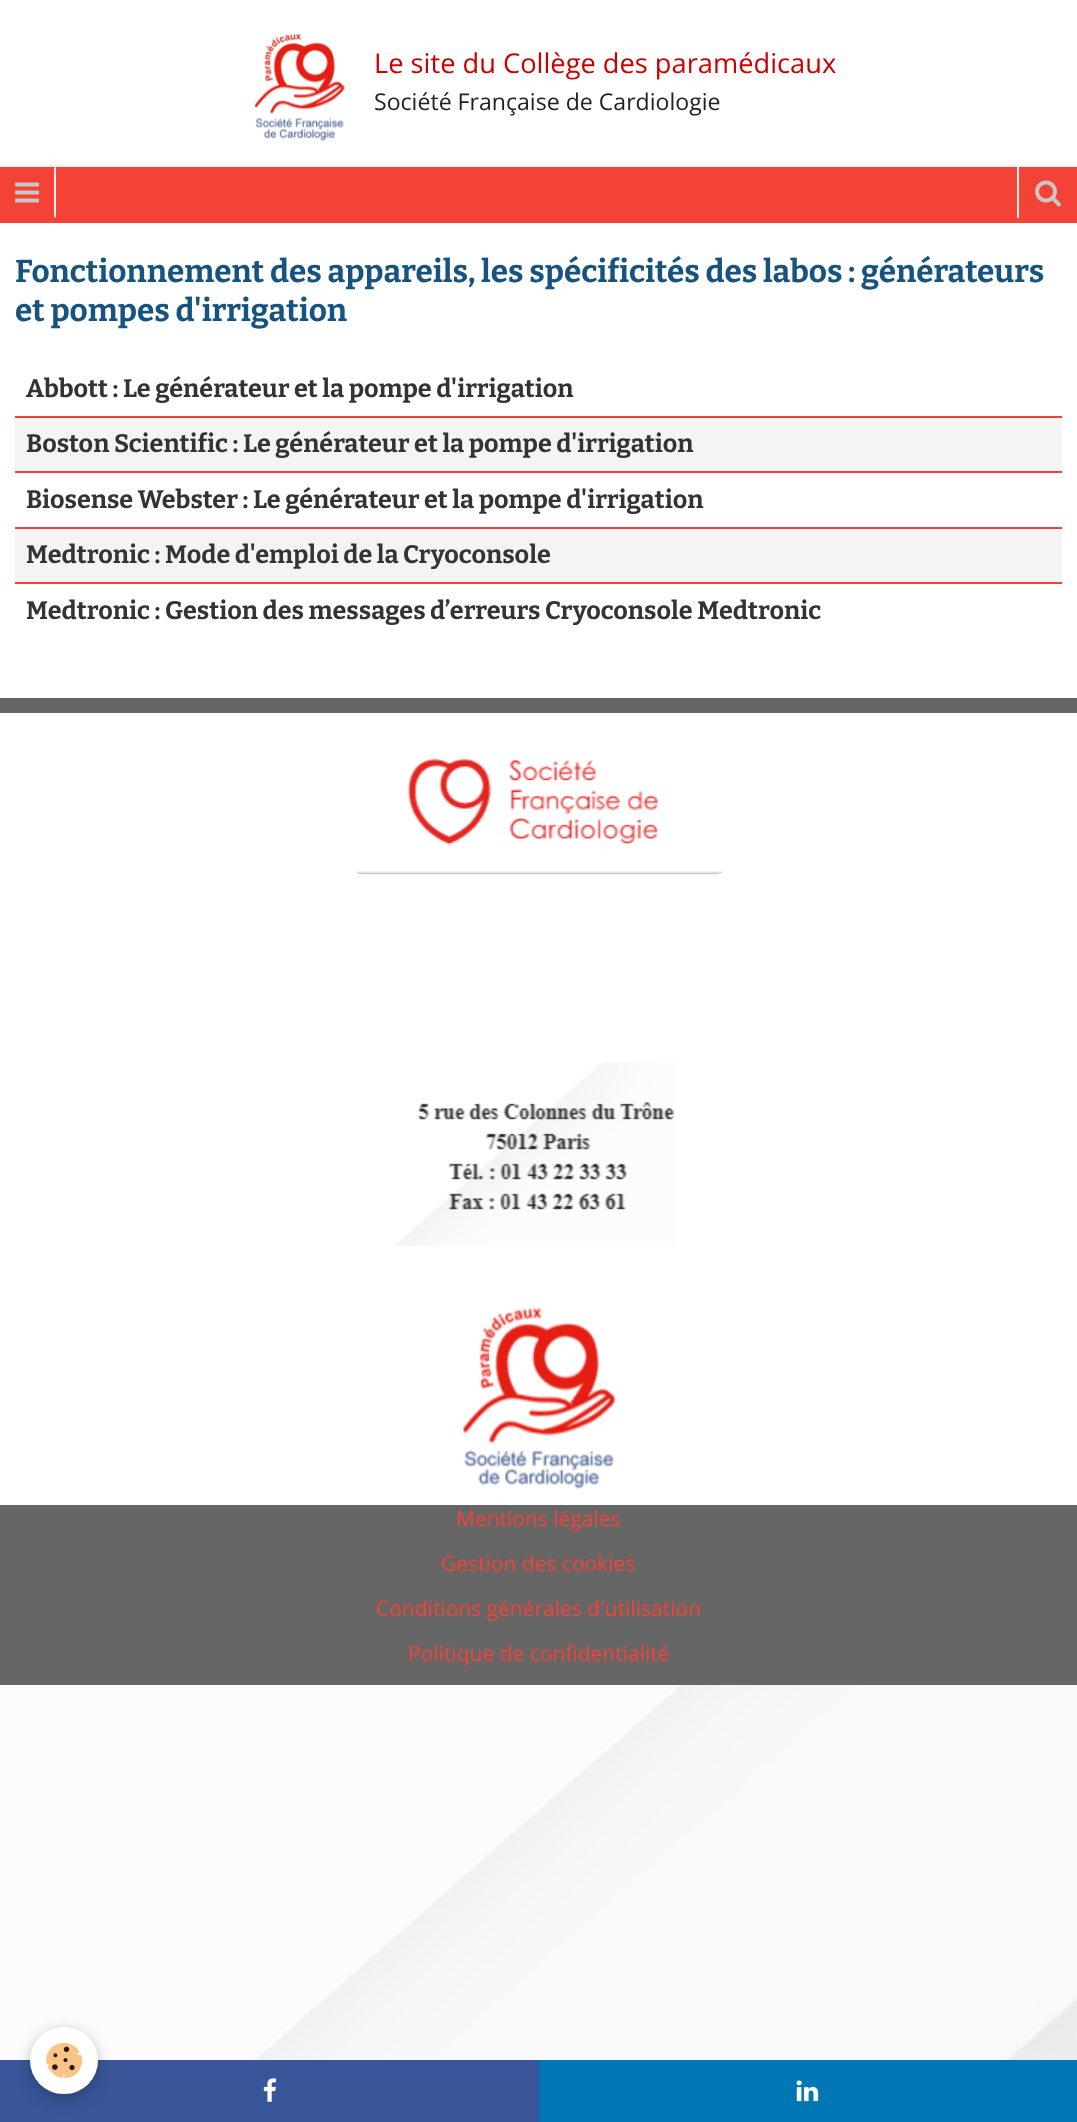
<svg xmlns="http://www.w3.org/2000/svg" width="1077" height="2122">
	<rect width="100%" height="100%" fill="#FFFFFF" />
	<image x="0" y="1685" width="1077" height="375" href="assets/img1.png" />
	<rect x="0" y="167" width="1077" height="56" fill="#F44336" />
	<image x="255" y="33" width="90" height="108" href="assets/img2.png" />
	<text x="374" y="73" font-family="Open Sans" font-size="27.25" fill="#CC0000">Le site du Collège des paramédicaux</text>
	<text x="374" y="110" font-family="Open Sans" font-size="23.1" fill="#222222">Société Française de Cardiologie</text>
	<rect x="0" y="165" width="1077" height="2" fill="#EEEEEE" />
	<path d="M56 166V218L54 216V168Z" fill="#EEEEEE" />
	<image x="15" y="182" width="24" height="21" href="assets/img3.png" />
	<rect x="1017" y="167" width="2" height="51" fill="#EEEEEE" />
	<image x="1035" y="180" width="26" height="27" href="assets/img4.png" />
	<rect x="15" y="529" width="1047" height="53" fill="#F4F4F4" />
	<rect x="15" y="418" width="1047" height="53" fill="#F4F4F4" />
	<g font-family="Bitter" font-size="31.5" font-weight="700" fill="#16537E">
		<text x="15" y="282">Fonctionnement des appareils, les spécificités des labos : générateurs</text>
		<text x="15" y="321">et pompes d'irrigation</text>
	</g>
	<rect x="15" y="416" width="1047" height="1" fill="#F44336" />
	<rect x="15" y="417" width="1047" height="1" fill="#E94135" />
	<text x="26" y="397" font-family="Bitter" font-size="25.2" font-weight="700" fill="#333333">Abbott : Le générateur et la pompe d'irrigation</text>
	<rect x="15" y="471" width="1047" height="2" fill="#F44336" />
	<text x="26" y="452" font-family="Bitter" font-size="25.2" font-weight="700" fill="#333333">Boston Scientific : Le générateur et la pompe d'irrigation</text>
	<rect x="15" y="527" width="1047" height="1" fill="#F44336" />
	<rect x="15" y="528" width="1047" height="1" fill="#E94135" />
	<text x="26" y="508" font-family="Bitter" font-size="25.2" font-weight="700" fill="#333333">Biosense Webster : Le générateur et la pompe d'irrigation</text>
	<rect x="15" y="582" width="1047" height="2" fill="#F44336" />
	<g font-family="Bitter" font-size="25.2" font-weight="700" fill="#333333">
		<text x="26" y="563">Medtronic : Mode d'emploi de la Cryoconsole</text>
		<text x="26" y="619">Medtronic : Gestion des messages d’erreurs Cryoconsole Medtronic</text>
	</g>
	<rect x="0" y="698" width="1077" height="987" fill="#666666" />
	<rect x="0" y="713" width="1077" height="792" fill="#FFFFFF" />
	<image x="355" y="758" width="369" height="117" href="assets/img5.png" />
	<image x="395" y="1062" width="280" height="184" href="assets/img6.png" />
	<image x="463" y="1307" width="153" height="182" href="assets/img7.png" />
	<g font-family="Open Sans" font-size="21" fill="#F44336">
		<text x="456" y="1526">Mentions légales</text>
		<text x="441" y="1571">Gestion des cookies</text>
		<text x="376" y="1616">Conditions générales d'utilisation</text>
		<text x="408" y="1661">Politique de confidentialité</text>
	</g>
	<rect x="0" y="2060" width="539" height="62" fill="#385699" />
	<rect x="30" y="2031" width="68" height="68" rx="34" fill="#000000" fill-opacity="0.24" filter="blur(7.5px)" />
	<rect x="30" y="2027" width="68" height="67" rx="33.5" fill="#FFFFFF" />
	<image x="46" y="2042" width="37" height="36" href="assets/img8.png" />
	<image x="263" y="2078" width="13" height="24" href="assets/img9.png" />
	<rect x="539" y="2060" width="538" height="62" fill="#0077B5" />
	<image x="796" y="2080" width="23" height="22" href="assets/img10.png" />
</svg>
